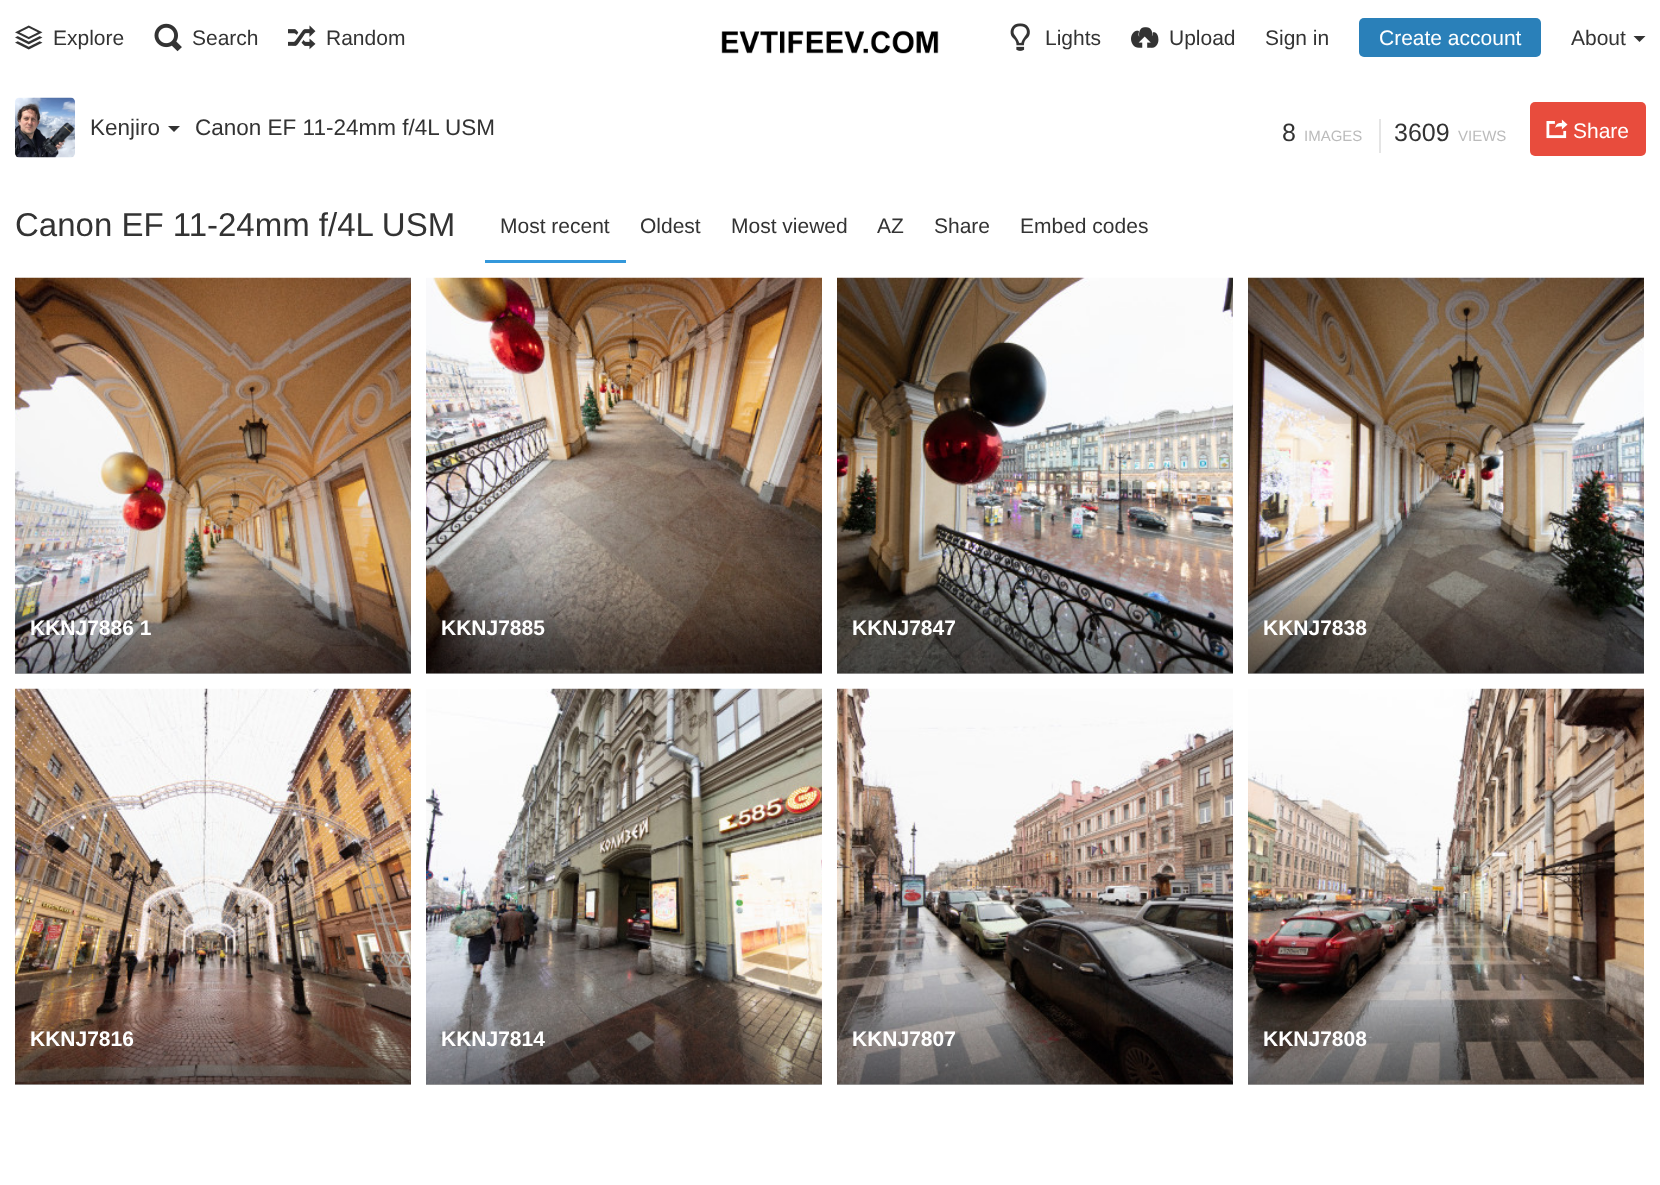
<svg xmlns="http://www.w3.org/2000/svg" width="1660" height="1185">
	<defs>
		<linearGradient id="g1" gradientUnits="userSpaceOnUse" x1="213" y1="591" x2="213" y2="674"><stop offset="0" stop-color="#000000" stop-opacity="0" /><stop offset="1" stop-color="#000000" stop-opacity="0.35" /></linearGradient>
		<linearGradient id="g2" gradientUnits="userSpaceOnUse" x1="624" y1="591" x2="624" y2="674"><stop offset="0" stop-color="#000000" stop-opacity="0" /><stop offset="1" stop-color="#000000" stop-opacity="0.35" /></linearGradient>
		<linearGradient id="g3" gradientUnits="userSpaceOnUse" x1="1035" y1="591" x2="1035" y2="674"><stop offset="0" stop-color="#000000" stop-opacity="0" /><stop offset="1" stop-color="#000000" stop-opacity="0.35" /></linearGradient>
		<linearGradient id="g4" gradientUnits="userSpaceOnUse" x1="1446" y1="591" x2="1446" y2="674"><stop offset="0" stop-color="#000000" stop-opacity="0" /><stop offset="1" stop-color="#000000" stop-opacity="0.35" /></linearGradient>
		<linearGradient id="g5" gradientUnits="userSpaceOnUse" x1="213" y1="1002" x2="213" y2="1085"><stop offset="0" stop-color="#000000" stop-opacity="0" /><stop offset="1" stop-color="#000000" stop-opacity="0.35" /></linearGradient>
		<linearGradient id="g6" gradientUnits="userSpaceOnUse" x1="624" y1="1002" x2="624" y2="1085"><stop offset="0" stop-color="#000000" stop-opacity="0" /><stop offset="1" stop-color="#000000" stop-opacity="0.35" /></linearGradient>
		<linearGradient id="g7" gradientUnits="userSpaceOnUse" x1="1035" y1="1002" x2="1035" y2="1085"><stop offset="0" stop-color="#000000" stop-opacity="0" /><stop offset="1" stop-color="#000000" stop-opacity="0.35" /></linearGradient>
		<linearGradient id="g8" gradientUnits="userSpaceOnUse" x1="1446" y1="1002" x2="1446" y2="1085"><stop offset="0" stop-color="#000000" stop-opacity="0" /><stop offset="1" stop-color="#000000" stop-opacity="0.35" /></linearGradient>
	</defs>
	<rect width="100%" height="100%" fill="#FFFFFF" />
	<image x="15" y="25" width="28" height="25" href="assets/img1.png" />
	<text x="53" y="45" font-family="Liberation Sans" font-size="21" fill="#333333">Explore</text>
	<image x="154" y="23" width="28" height="29" href="assets/img2.png" />
	<text x="192" y="45" font-family="Liberation Sans" font-size="21" fill="#333333">Search</text>
	<image x="288" y="25" width="28" height="25" href="assets/img3.png" />
	<text x="326" y="45" font-family="Liberation Sans" font-size="21" fill="#333333">Random</text>
	<image x="721" y="30" width="218" height="24" href="assets/img4.png" />
	<image x="1010" y="23" width="20" height="28" href="assets/img5.png" />
	<text x="1045" y="45" font-family="Liberation Sans" font-size="21" fill="#333333">Lights</text>
	<image x="1131" y="27" width="28" height="21" href="assets/img6.png" />
	<g font-family="Liberation Sans" font-size="21" fill="#333333">
		<text x="1169" y="45">Upload</text>
		<text x="1265" y="45">Sign in</text>
	</g>
	<rect x="1359" y="18" width="182" height="39" rx="5" fill="#2A80B9" />
	<text x="1379" y="45" font-family="Liberation Sans" font-size="21" fill="#FFFFFF">Create account</text>
	<text x="1571" y="45" font-family="Liberation Sans" font-size="21" fill="#333333">About</text>
	<path d="M1633.5 36H1645.5L1639.5 42Z" fill="#333333" />
	<image x="15" y="97" width="60" height="61" href="assets/img7.png" />
	<text x="90" y="135" font-family="Liberation Sans" font-size="22.5" fill="#333333">Kenjiro</text>
	<path d="M168 126H180L174 132Z" fill="#333333" />
	<text x="195" y="135" font-family="Liberation Sans" font-size="22.5" fill="#333333">Canon EF 11-24mm f/4L USM</text>
	<text x="1282" y="141" font-family="Liberation Sans" font-size="25" fill="#333333">8</text>
	<text x="1304" y="141" font-family="Liberation Sans" font-size="15" fill="#BBBBBB">IMAGES</text>
	<rect x="1379" y="119" width="2" height="34" fill="#E5E5E5" />
	<text x="1394" y="141" font-family="Liberation Sans" font-size="25" fill="#333333">3609</text>
	<text x="1458" y="141" font-family="Liberation Sans" font-size="15" fill="#BBBBBB">VIEWS</text>
	<rect x="1530" y="102" width="116" height="54" rx="5" fill="#E84C3D" />
	<image x="1546" y="119" width="22" height="20" href="assets/img8.png" />
	<text x="1573" y="138" font-family="Liberation Sans" font-size="21" fill="#FFFFFF">Share</text>
	<text x="15" y="236" font-family="Liberation Sans" font-size="33" fill="#333333">Canon EF 11-24mm f/4L USM</text>
	<rect x="485" y="260" width="141" height="3" fill="#3498DB" />
	<g font-family="Liberation Sans" font-size="21" fill="#333333">
		<text x="500" y="233">Most recent</text>
		<text x="640" y="233">Oldest</text>
		<text x="731" y="233">Most viewed</text>
		<text x="877" y="233">AZ</text>
		<text x="934" y="233">Share</text>
		<text x="1020" y="233">Embed codes</text>
	</g>
	<rect x="15" y="673" width="396" height="1" fill="#F6F6F6" />
	<image x="15" y="277" width="396" height="397" href="assets/img9.png" />
	<rect x="15" y="596" width="396" height="78" fill="url(#g1)" />
	<text x="30" y="635" font-family="Liberation Sans" font-size="21" font-weight="700" fill="#FFFFFF">KKNJ7886 1</text>
	<rect x="426" y="673" width="396" height="1" fill="#F6F6F6" />
	<image x="426" y="277" width="396" height="397" href="assets/img10.png" />
	<rect x="426" y="596" width="396" height="78" fill="url(#g2)" />
	<text x="441" y="635" font-family="Liberation Sans" font-size="21" font-weight="700" fill="#FFFFFF">KKNJ7885</text>
	<rect x="837" y="673" width="396" height="1" fill="#F6F6F6" />
	<image x="837" y="277" width="396" height="397" href="assets/img11.png" />
	<rect x="837" y="596" width="396" height="78" fill="url(#g3)" />
	<text x="852" y="635" font-family="Liberation Sans" font-size="21" font-weight="700" fill="#FFFFFF">KKNJ7847</text>
	<rect x="1248" y="673" width="396" height="1" fill="#F6F6F6" />
	<image x="1248" y="277" width="396" height="397" href="assets/img12.png" />
	<rect x="1248" y="596" width="396" height="78" fill="url(#g4)" />
	<text x="1263" y="635" font-family="Liberation Sans" font-size="21" font-weight="700" fill="#FFFFFF">KKNJ7838</text>
	<rect x="15" y="1084" width="396" height="1" fill="#F6F6F6" />
	<image x="15" y="688" width="396" height="397" href="assets/img13.png" />
	<rect x="15" y="1007" width="396" height="78" fill="url(#g5)" />
	<text x="30" y="1046" font-family="Liberation Sans" font-size="21" font-weight="700" fill="#FFFFFF">KKNJ7816</text>
	<rect x="426" y="1084" width="396" height="1" fill="#F6F6F6" />
	<image x="426" y="688" width="396" height="397" href="assets/img14.png" />
	<rect x="426" y="1007" width="396" height="78" fill="url(#g6)" />
	<text x="441" y="1046" font-family="Liberation Sans" font-size="21" font-weight="700" fill="#FFFFFF">KKNJ7814</text>
	<rect x="837" y="1084" width="396" height="1" fill="#F6F6F6" />
	<image x="837" y="688" width="396" height="397" href="assets/img15.png" />
	<rect x="837" y="1007" width="396" height="78" fill="url(#g7)" />
	<text x="852" y="1046" font-family="Liberation Sans" font-size="21" font-weight="700" fill="#FFFFFF">KKNJ7807</text>
	<rect x="1248" y="1084" width="396" height="1" fill="#F6F6F6" />
	<image x="1248" y="688" width="396" height="397" href="assets/img16.png" />
	<rect x="1248" y="1007" width="396" height="78" fill="url(#g8)" />
	<text x="1263" y="1046" font-family="Liberation Sans" font-size="21" font-weight="700" fill="#FFFFFF">KKNJ7808</text>
</svg>
